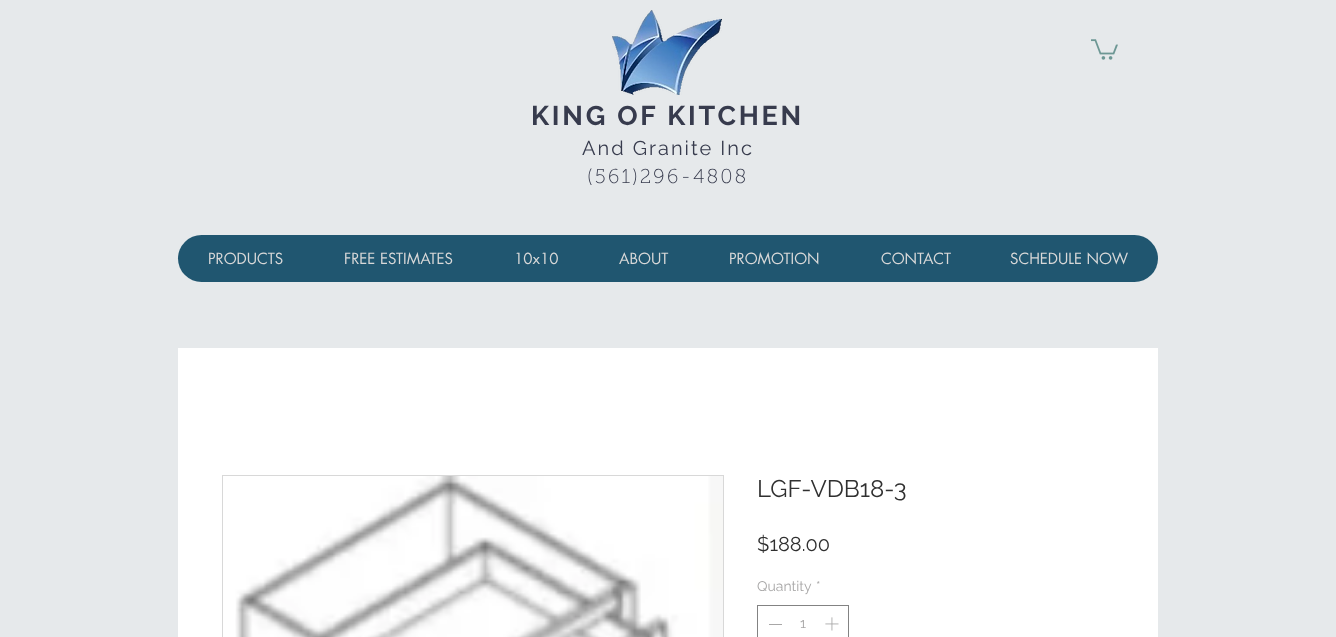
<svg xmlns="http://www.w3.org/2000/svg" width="1336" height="637">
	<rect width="100%" height="100%" fill="#E6E9EB" />
	<image x="612" y="10" width="110" height="85" href="assets/img1.png" />
	<image x="1091" y="39" width="27" height="21" href="assets/img2.png" />
	<text x="531" y="125" font-family="Raleway" font-size="27" font-weight="700" letter-spacing="2.75" fill="#373B4D">KING OF KITCHEN</text>
	<text x="582" y="155" font-family="Raleway" font-size="20" letter-spacing="2" fill="#373B4D">And Granite Inc</text>
	<text x="587" y="183" font-family="'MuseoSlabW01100'" font-size="20" font-weight="100" letter-spacing="2" fill="#373B4D">(561)296-4808</text>
	<rect x="178" y="235" width="980" height="47" rx="23.5" fill="#205670" />
	<g font-family="futura" font-size="15" fill="#D8D8D8">
		<text x="208" y="264">PRODUCTS</text>
		<text x="344" y="264">FREE ESTIMATES</text>
		<text x="514" y="264">10x10</text>
		<text x="619" y="264">ABOUT</text>
		<text x="729" y="264">PROMOTION</text>
		<text x="881" y="264">CONTACT</text>
		<text x="1010" y="264">SCHEDULE NOW</text>
	</g>
	<rect x="178" y="348" width="980" height="289" fill="#FFFFFF" />
	<rect x="222.5" y="475.5" width="501" height="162" fill="none" stroke="#D8D8D8" />
	<image x="235" y="476" width="488" height="161" href="assets/img3.png" />
	<text x="757" y="497" font-family="Raleway" font-size="24" fill="#303030">LGF-VDB18-3</text>
	<text x="757" y="551" font-family="Raleway" font-size="20" fill="#303030">$188.00</text>
	<g font-family="Raleway" font-size="14" fill="#A8A7A7">
		<text x="757" y="591">Quantity</text>
		<text x="816" y="591">*</text>
	</g>
	<rect x="757.5" y="605.5" width="91" height="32" fill="none" stroke="#838383" />
	<rect x="769" y="624" width="13" height="1" fill="#A8A7A7" />
	<text x="800" y="628" font-family="Raleway" font-size="14" fill="#A8A7A7">1</text>
	<image x="825" y="617" width="14" height="14" href="assets/img4.png" />
</svg>
